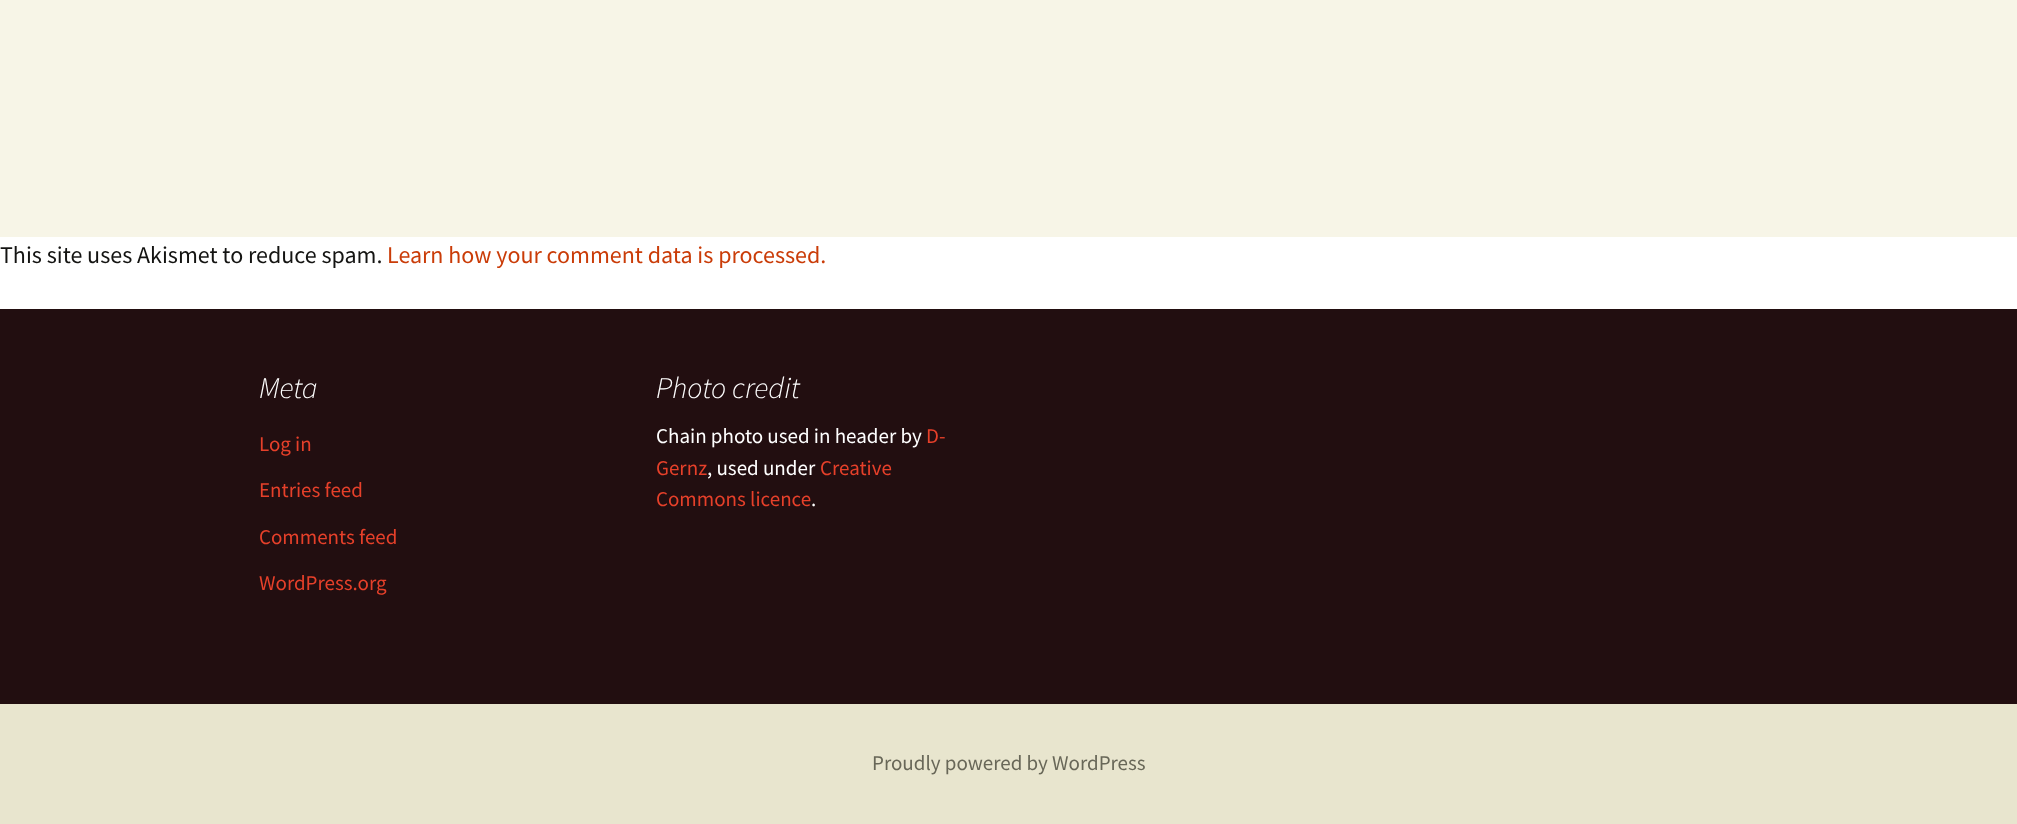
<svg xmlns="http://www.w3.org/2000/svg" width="2017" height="824">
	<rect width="100%" height="100%" fill="#FFFFFF" />
	<rect x="0" y="0" width="2017" height="237" fill="#F7F5E7" />
	<text x="0" y="263" font-family="Source Sans Pro" font-size="24" fill="#141412">This site uses Akismet to reduce spam.</text>
	<text x="387" y="263" font-family="Source Sans Pro" font-size="24" fill="#CA3C08">Learn how your comment data is processed.</text>
	<rect x="0" y="704" width="2017" height="120" fill="#E8E5CE" />
	<rect x="0" y="309" width="2017" height="395" fill="#220E10" />
	<text x="259" y="398" font-family="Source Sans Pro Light" font-size="30" font-weight="300" font-style="italic" fill="#FFFFFF">Meta</text>
	<g font-family="Source Sans Pro" font-size="21" fill="#E6402A">
		<text x="259" y="451">Log in</text>
		<text x="259" y="497">Entries feed</text>
		<text x="259" y="544">Comments feed</text>
		<text x="259" y="590">WordPress.org</text>
	</g>
	<text x="656" y="398" font-family="Source Sans Pro Light" font-size="30" font-weight="300" font-style="italic" fill="#FFFFFF">Photo credit</text>
	<text x="656" y="443" font-family="Source Sans Pro" font-size="21" fill="#FFFFFF">Chain photo used in header by</text>
	<g font-family="Source Sans Pro" font-size="21" fill="#E6402A">
		<text x="926" y="443">D-</text>
		<text x="656" y="475">Gernz</text>
	</g>
	<text x="707" y="475" font-family="Source Sans Pro" font-size="21" fill="#FFFFFF">, used under</text>
	<g font-family="Source Sans Pro" font-size="21" fill="#E6402A">
		<text x="820" y="475">Creative</text>
		<text x="656" y="506">Commons licence</text>
	</g>
	<text x="811" y="506" font-family="Source Sans Pro" font-size="21" fill="#FFFFFF">.</text>
	<text x="872" y="770" font-family="Source Sans Pro" font-size="21" fill="#686758">Proudly powered by WordPress</text>
</svg>
